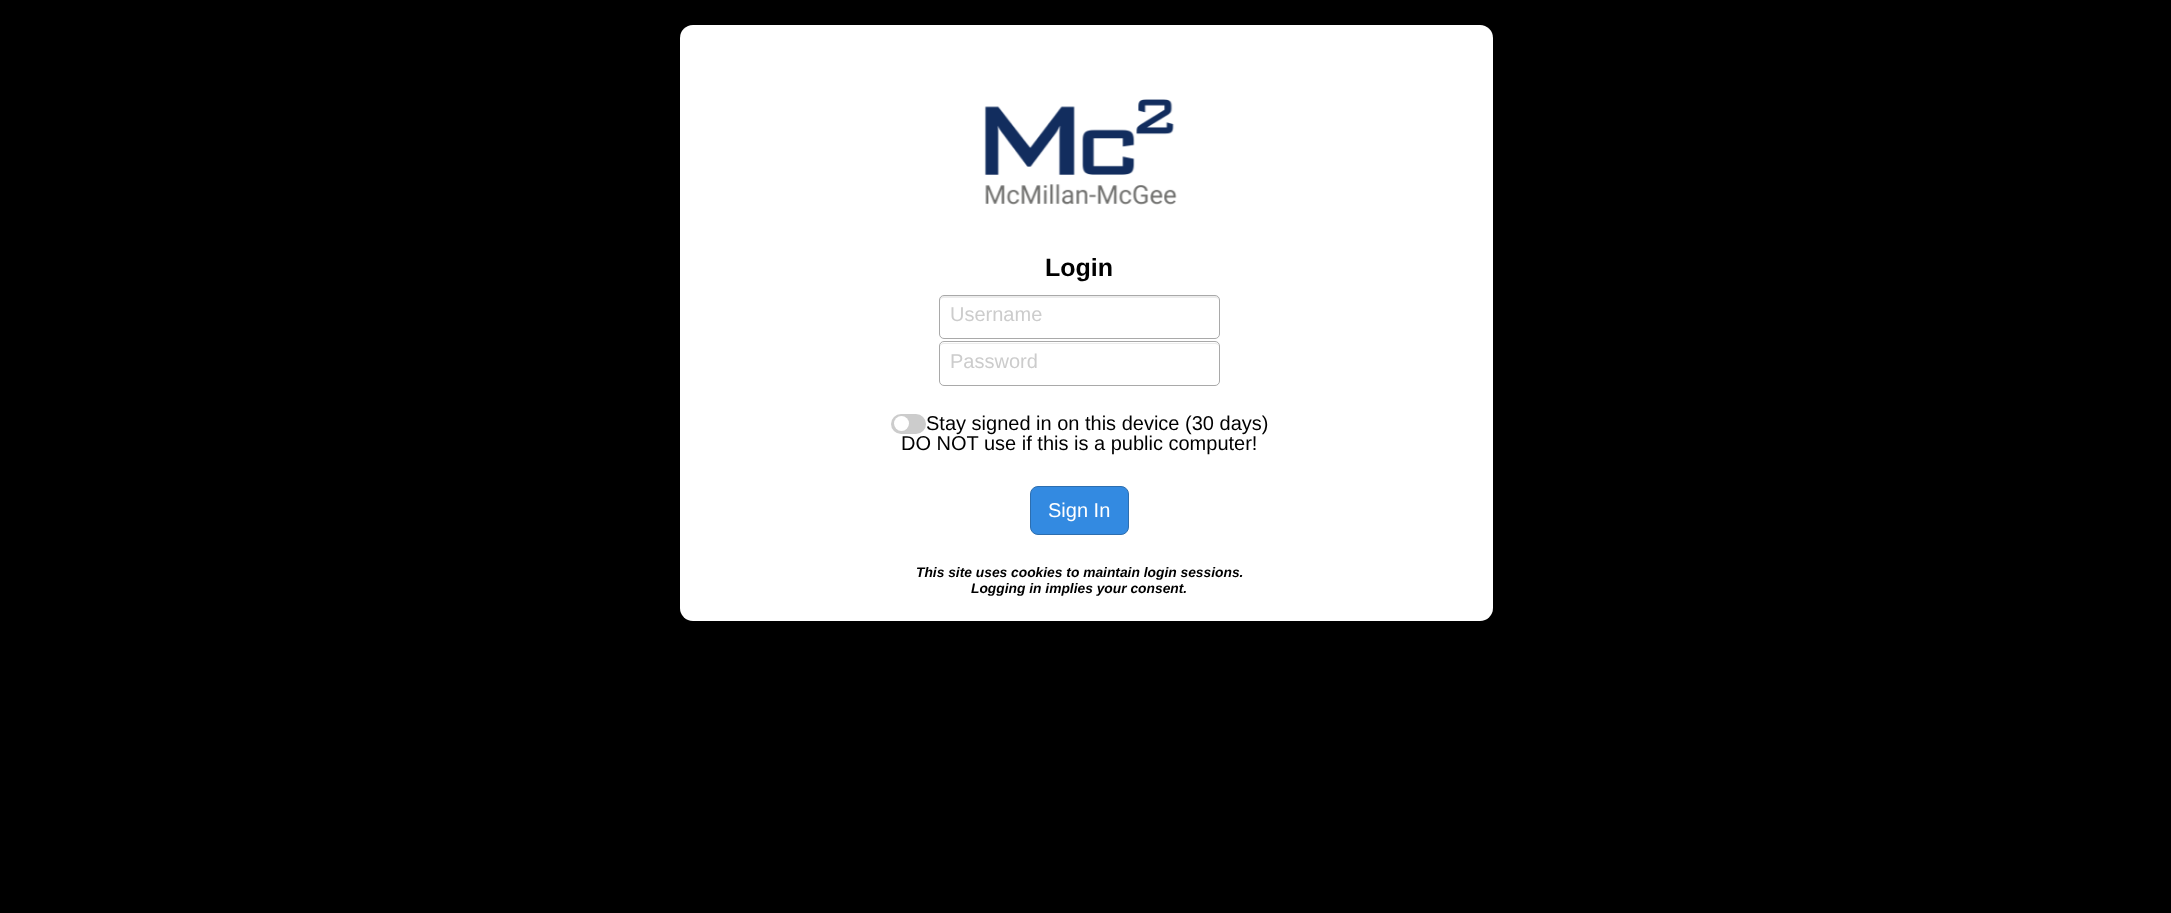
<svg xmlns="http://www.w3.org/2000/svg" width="2171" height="913">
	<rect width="100%" height="100%" fill="#000000" />
	<rect x="680" y="25" width="813" height="596" rx="13" fill="#FFFFFF" />
	<image x="984" y="99" width="193" height="106" href="assets/img1.png" />
	<text x="1045" y="276" font-family="Liberation Sans" font-size="25" font-weight="700" fill="#000000">Login</text>
	<path d="M944 298H1215C1217 298 1219 299 1219 301C1219 298 1218 296 1215 296H944C941 296 940 298 940 301C940 299 942 298 944 298Z" fill="#ECECEC" />
	<rect x="939.5" y="295.5" width="280" height="43" rx="4.5" fill="none" stroke="#A9A9A9" />
	<text x="950" y="321" font-family="Liberation Sans" font-size="20" fill="#CCCCCC">Username</text>
	<path d="M944 344H1215C1217 344 1219 345 1219 348C1219 345 1218 343 1215 343H944C941 343 940 345 940 348C940 345 942 344 944 344Z" fill="#ECECEC" />
	<rect x="939.5" y="341.5" width="280" height="44" rx="4.5" fill="none" stroke="#A9A9A9" />
	<text x="950" y="368" font-family="Liberation Sans" font-size="20" fill="#CCCCCC">Password</text>
	<rect x="891" y="414" width="35" height="20" rx="10" fill="#CCCCCC" />
	<circle cx="901.5" cy="423.5" r="7.5" fill="#FFFFFF" />
	<g font-family="Liberation Sans" font-size="20" fill="#000000">
		<text x="926" y="430">Stay signed in on this device (30 days)</text>
		<text x="901" y="450">DO NOT use if this is a public computer!</text>
	</g>
	<rect x="1030.5" y="486.5" width="98" height="48" rx="7.5" fill="#338AE1" stroke="#2D6EAF" />
	<text x="1048" y="517" font-family="Liberation Sans" font-size="20" fill="#FFFFFF">Sign In</text>
	<g font-family="Liberation Sans" font-size="13.8" font-weight="700" font-style="italic" fill="#000000">
		<text x="916" y="577">This site uses cookies to maintain login sessions.</text>
		<text x="971" y="593">Logging in implies your consent.</text>
	</g>
</svg>
